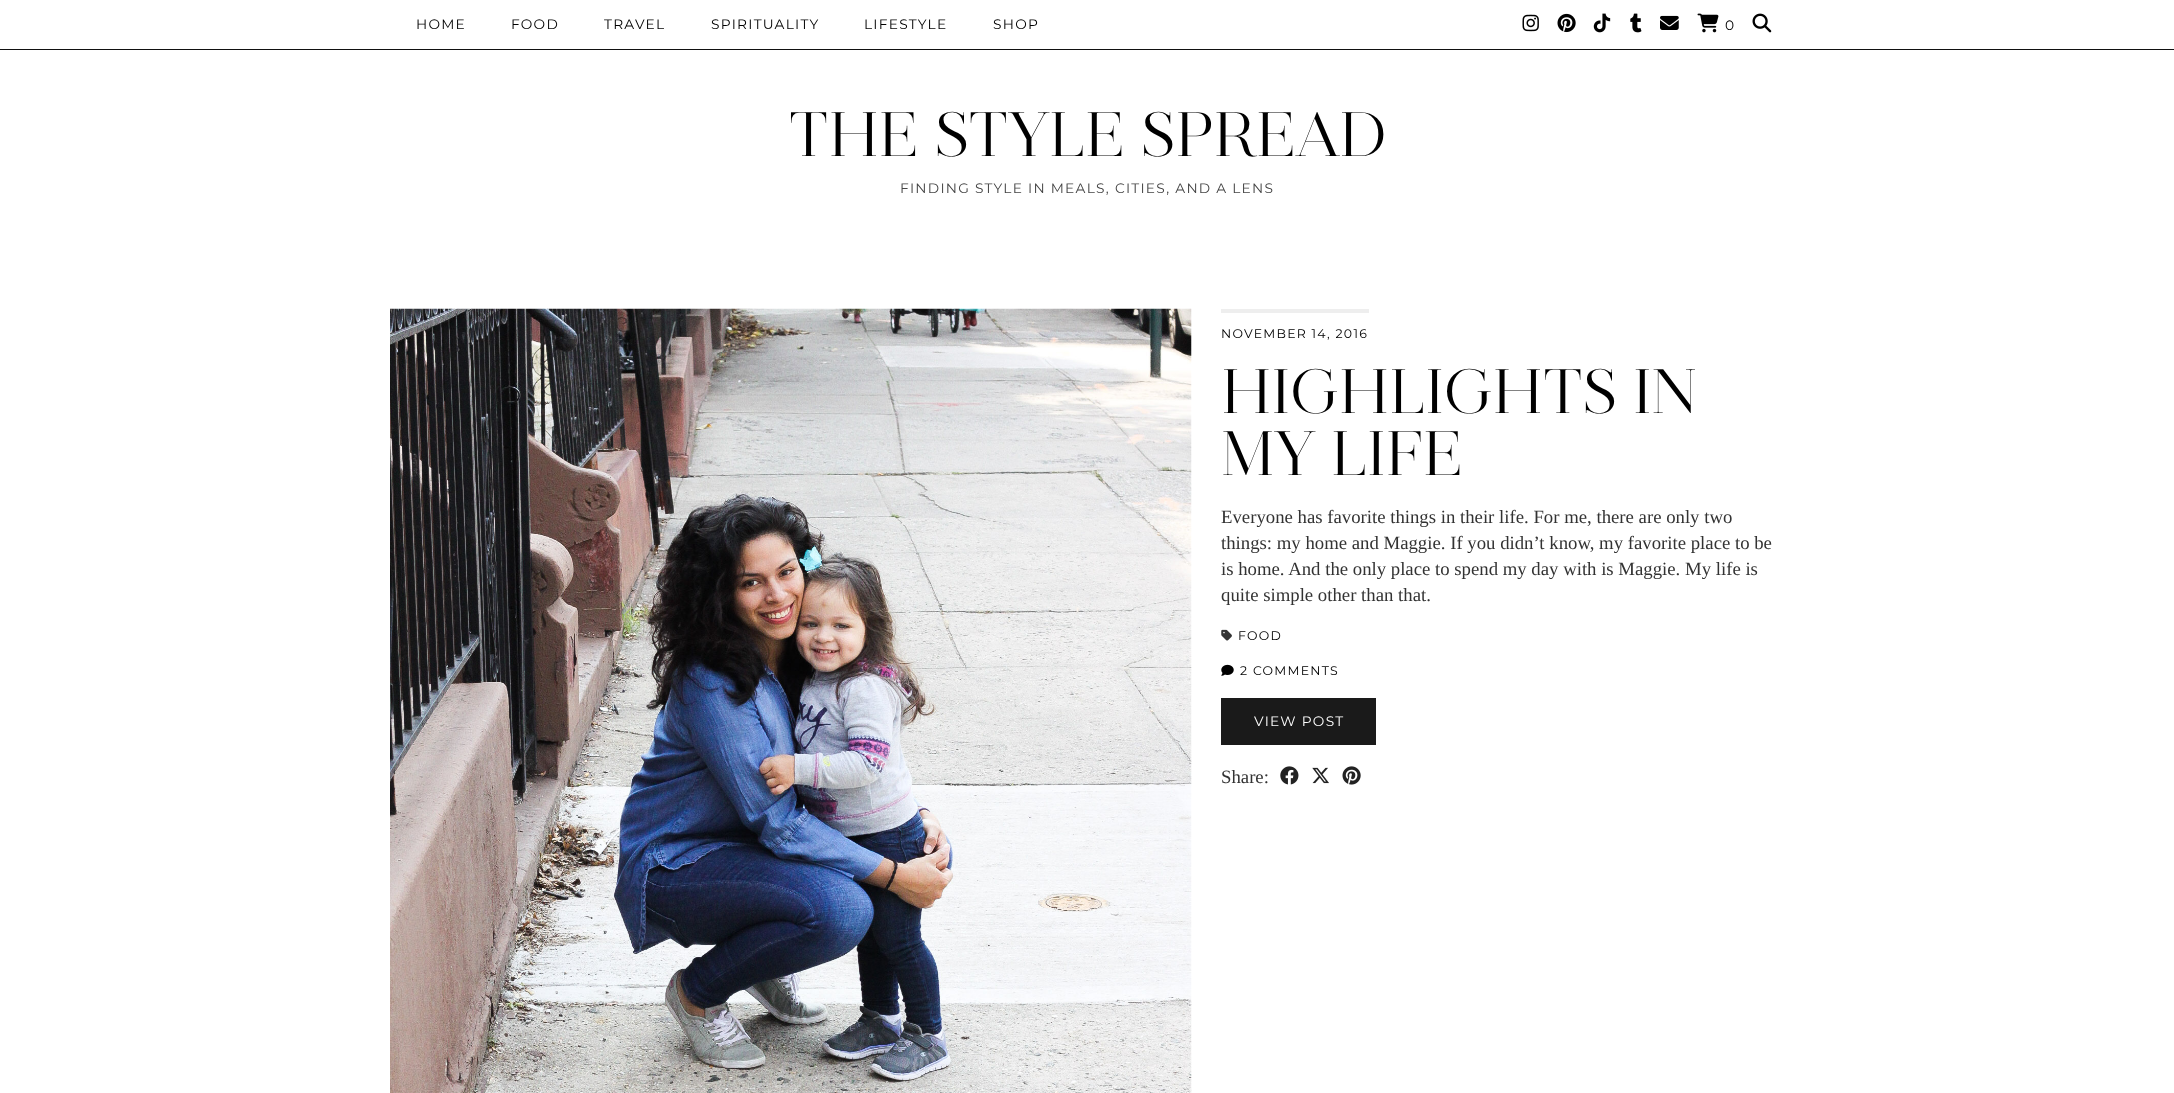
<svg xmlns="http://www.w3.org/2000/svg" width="2174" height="1093">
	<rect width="100%" height="100%" fill="#FFFFFF" />
	<rect x="0" y="49" width="2174" height="1" fill="#111111" />
	<g font-family="Montserrat" font-size="13.75" font-weight="100" letter-spacing="1.25" fill="#000000">
		<text x="416" y="29">HOME</text>
		<text x="511" y="29">FOOD</text>
		<text x="604" y="29">TRAVEL</text>
		<text x="711" y="29">SPIRITUALITY</text>
		<text x="864" y="29">LIFESTYLE</text>
		<text x="993" y="29">SHOP</text>
	</g>
	<image x="1522" y="14" width="17" height="18" href="assets/img1.png" />
	<image x="1557" y="13" width="19" height="20" href="assets/img2.png" />
	<image x="1593" y="13" width="18" height="20" href="assets/img3.png" />
	<image x="1630" y="13" width="12" height="20" href="assets/img4.png" />
	<image x="1660" y="15" width="19" height="15" href="assets/img5.png" />
	<image x="1697" y="13" width="22" height="20" href="assets/img6.png" />
	<text x="1725" y="30" font-family="Montserrat" font-size="13.75" font-weight="100" letter-spacing="1.25" fill="#000000">0</text>
	<image x="1752" y="13" width="20" height="20" href="assets/img7.png" />
	<text x="788" y="156" font-family="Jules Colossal" font-size="62.5" fill="#000000">THE STYLE SPREAD</text>
	<text x="900" y="193" font-family="Montserrat" font-size="13.75" font-weight="100" letter-spacing="1.25" fill="#444444">FINDING STYLE IN MEALS, CITIES, AND A LENS</text>
	<image x="390" y="308" width="802" height="785" href="assets/img8.png" />
	<rect x="1221" y="309" width="148" height="4" fill="#EEEEEE" />
	<text x="1221" y="338" font-family="Montserrat" font-size="12.5" font-weight="100" letter-spacing="1.25" fill="#000000">NOVEMBER 14, 2016</text>
	<g font-family="Jules Colossal" font-size="62.5" fill="#000000">
		<text x="1221" y="413">HIGHLIGHTS IN</text>
		<text x="1221" y="475">MY LIFE</text>
	</g>
	<g font-family="Liberation Serif" font-size="18.75" fill="#333333">
		<text x="1221" y="523">Everyone has favorite things in their life. For me, there are only two</text>
		<text x="1221" y="549">things: my home and Maggie. If you didn’t know, my favorite place to be</text>
		<text x="1221" y="575">is home. And the only place to spend my day with is Maggie. My life is</text>
		<text x="1221" y="601">quite simple other than that.</text>
	</g>
	<image x="1221" y="629" width="11" height="12" href="assets/img9.png" />
	<text x="1238" y="640" font-family="Montserrat" font-size="12.5" font-weight="100" letter-spacing="1.25" fill="#000000">FOOD</text>
	<image x="1221" y="664" width="13" height="12" href="assets/img10.png" />
	<text x="1240" y="675" font-family="Montserrat" font-size="12.5" font-weight="100" letter-spacing="1.25" fill="#000000">2 COMMENTS</text>
	<rect x="1221" y="698" width="155" height="47" fill="#1A1A1A" />
	<text x="1254" y="726" font-family="Montserrat" font-size="13.75" font-weight="100" letter-spacing="1.25" fill="#FFFFFF">VIEW POST</text>
	<text x="1221" y="783" font-family="Liberation Serif" font-size="18.75" fill="#333333">Share:</text>
	<image x="1280" y="766" width="19" height="19" href="assets/img11.png" />
	<image x="1312" y="767" width="17" height="17" href="assets/img12.png" />
	<image x="1342" y="766" width="19" height="19" href="assets/img13.png" />
</svg>
